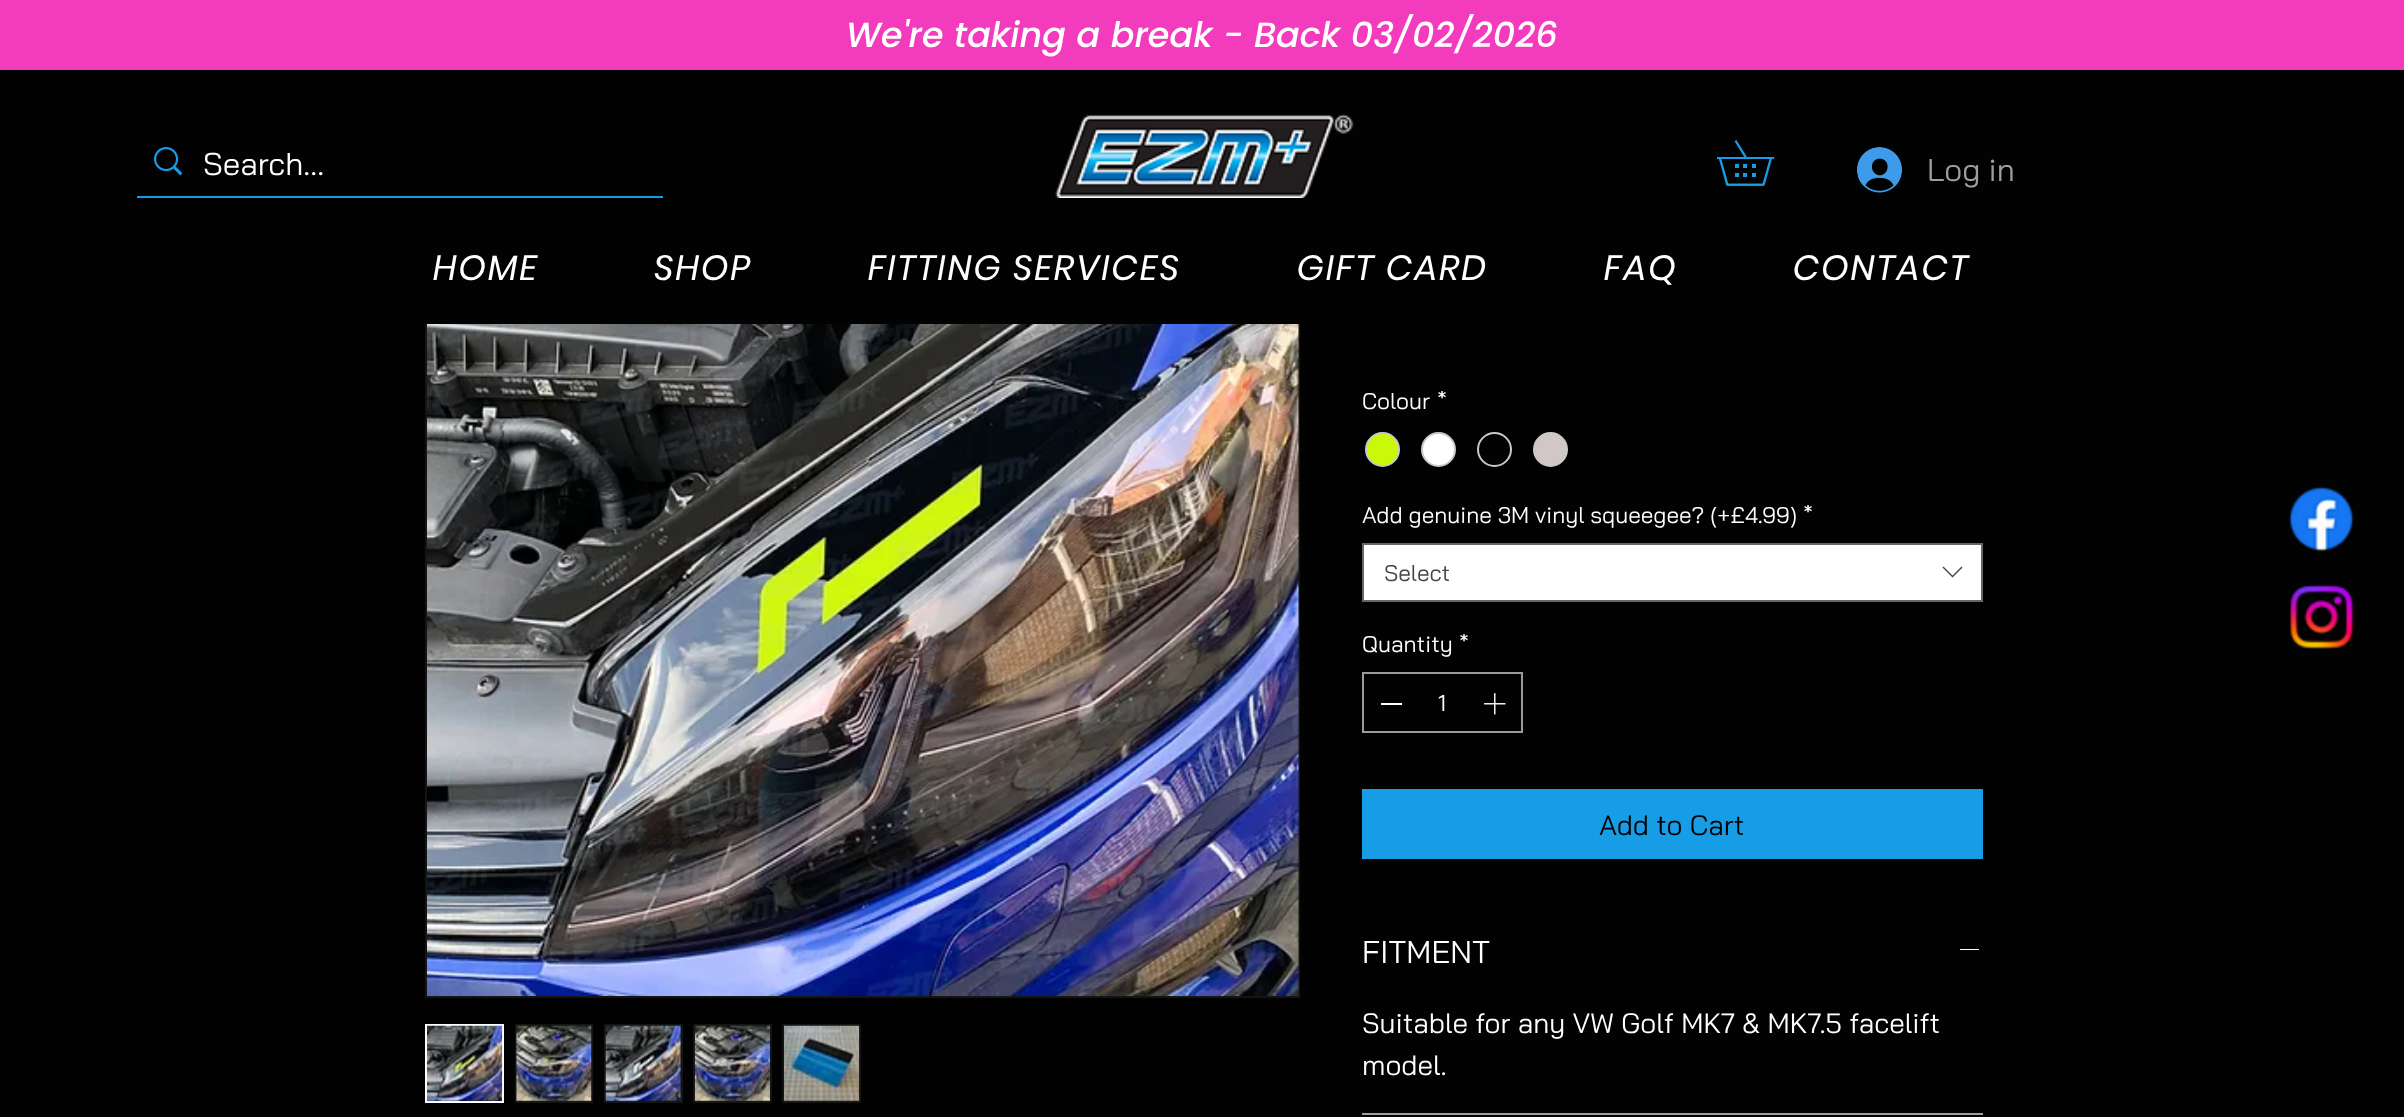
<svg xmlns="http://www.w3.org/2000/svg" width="2404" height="1117">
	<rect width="100%" height="100%" fill="#020202" />
	<rect x="0" y="0" width="2404" height="70" fill="#F23BBD" />
	<text x="846" y="47" font-family="Poppins" font-size="35" font-weight="500" font-style="italic" fill="#FFFFFF">We're taking a break - Back 03/02/2026</text>
	<rect x="426" y="124" width="873" height="873" fill="none" stroke="#141414" stroke-width="2" />
	<rect x="425" y="123" width="875" height="201" fill="#020202" />
	<rect x="137" y="196" width="526" height="2" fill="#179DE6" />
	<image x="154" y="147" width="28" height="29" href="assets/img1.png" />
	<text x="203" y="175" font-family="Bai Jamjuree" font-size="31.5" fill="#FFFFFF">Search...</text>
	<image x="1055" y="114" width="299" height="84" href="assets/img2.png" />
	<image x="1717" y="140" width="57" height="46" href="assets/img3.png" />
	<image x="1857" y="147" width="45" height="46" href="assets/img4.png" />
	<text x="1927" y="181" font-family="Bai Jamjuree" font-size="31.5" fill="#A29C9C">Log in</text>
	<g font-family="Poppins" font-size="35" font-style="italic" letter-spacing="1.75" fill="#FFFFFF">
		<text x="433" y="280">HOME</text>
		<text x="654" y="280">SHOP</text>
		<text x="868" y="280">FITTING SERVICES</text>
		<text x="1297" y="280">GIFT CARD</text>
		<text x="1604" y="280">FAQ</text>
		<text x="1793" y="280">CONTACT</text>
	</g>
	<image x="427" y="324" width="872" height="672" href="assets/img5.png" />
	<rect x="426" y="1025" width="77" height="77" fill="none" stroke="#FFFFFF" stroke-width="2" />
	<image x="427" y="1025" width="76" height="77" href="assets/img6.png" />
	<rect x="515" y="1024" width="78" height="79" fill="#141414" />
	<image x="516" y="1025" width="76" height="77" href="assets/img7.png" />
	<rect x="604" y="1024" width="79" height="79" fill="#141414" />
	<image x="605" y="1025" width="76" height="77" href="assets/img8.png" />
	<rect x="693" y="1024" width="79" height="79" fill="#141414" />
	<image x="694" y="1025" width="76" height="77" href="assets/img9.png" />
	<rect x="782" y="1024" width="79" height="79" fill="#141414" />
	<image x="784" y="1025" width="76" height="77" href="assets/img10.png" />
	<g font-family="Bai Jamjuree" font-size="22.75" fill="#FFFFFF">
		<text x="1362" y="409">Colour</text>
		<text x="1437" y="409">*</text>
	</g>
	<circle cx="1382.5" cy="449.5" r="16.5" fill="#C9F909" stroke="#C9C9C9" stroke-width="2" />
	<circle cx="1438.5" cy="449.5" r="16.5" fill="#FFFFFF" stroke="#C9C9C9" stroke-width="2" />
	<circle cx="1494.5" cy="449.5" r="16.5" fill="none" stroke="#C9C9C9" stroke-width="2" />
	<circle cx="1550.5" cy="449.5" r="16.5" fill="#D2C7C7" stroke="#C9C9C9" stroke-width="2" />
	<g font-family="Bai Jamjuree" font-size="22.75" fill="#FFFFFF">
		<text x="1362" y="523">Add genuine 3M vinyl squeegee? (+£4.99)</text>
		<text x="1803" y="523">*</text>
	</g>
	<rect x="1363" y="544" width="619" height="57" fill="#FFFFFF" stroke="#666666" stroke-width="2" />
	<text x="1384" y="581" font-family="Bai Jamjuree" font-size="22.75" fill="#444444">Select</text>
	<path d="M1961.5 566.5L1962.5 567.5L1952.5 577.5L1942.5 567.5L1943.5 566.5L1952.5 575.5Z" fill="#444444" fill-rule="evenodd" />
	<g font-family="Bai Jamjuree" font-size="22.75" fill="#FFFFFF">
		<text x="1362" y="652">Quantity</text>
		<text x="1459" y="652">*</text>
	</g>
	<rect x="1363" y="673" width="159" height="59" fill="none" stroke="#9A9A9A" stroke-width="2" />
	<rect x="1381" y="703" width="21" height="2" fill="#FFFFFF" />
	<text x="1438" y="711" font-family="Bai Jamjuree" font-size="22.75" fill="#FFFFFF">1</text>
	<image x="1484" y="693" width="22" height="22" href="assets/img11.png" />
	<rect x="1362" y="789" width="621" height="70" fill="#179DE6" />
	<text x="1599" y="835" font-family="Bai Jamjuree" font-size="28" fill="#020202">Add to Cart</text>
	<rect x="1362" y="1113" width="621" height="2" fill="#A29C9C" />
	<text x="1362" y="963" font-family="Bai Jamjuree" font-size="31.5" fill="#FFFFFF">FITMENT</text>
	<rect x="1960" y="949" width="19" height="1" fill="#FFFFFF" />
	<g font-family="Bai Jamjuree" font-size="28" fill="#FFFFFF">
		<text x="1362" y="1033">Suitable for any VW Golf MK7 &amp; MK7.5 facelift</text>
		<text x="1362" y="1075">model.</text>
	</g>
	<image x="2288" y="486" width="66" height="66" href="assets/img12.png" />
	<image x="2289" y="584" width="65" height="66" href="assets/img13.png" />
</svg>
